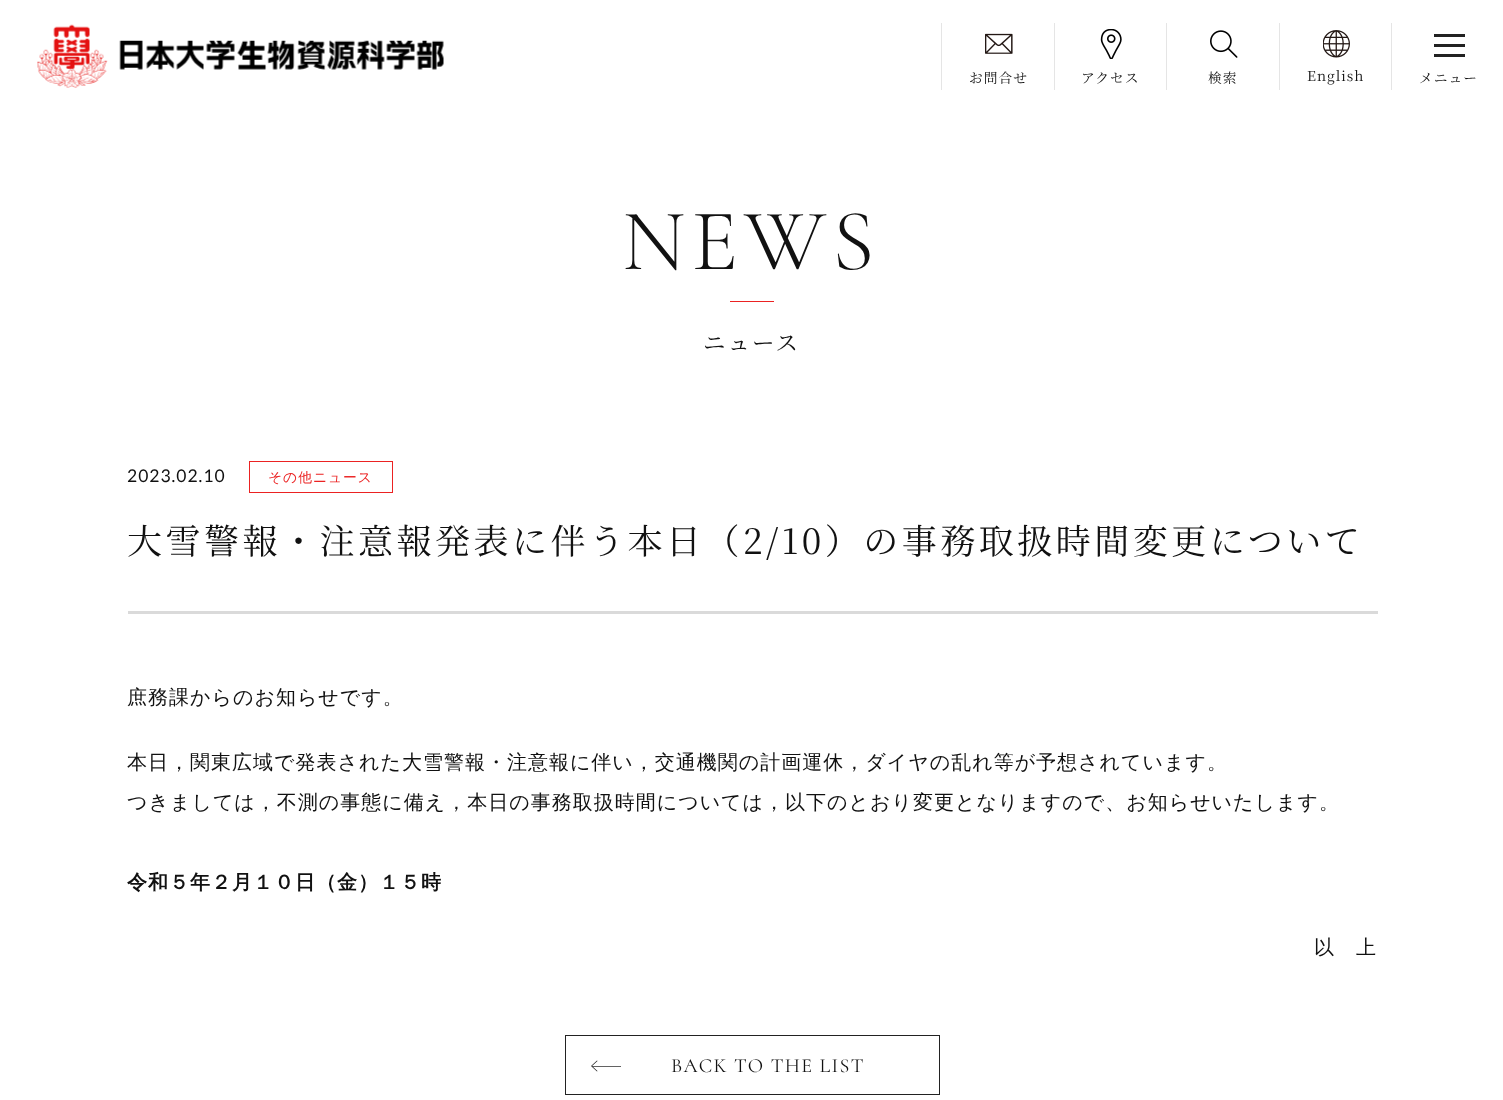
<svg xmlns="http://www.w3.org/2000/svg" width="1503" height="1100">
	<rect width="100%" height="100%" fill="#FFFFFF" />
	<image x="37" y="24" width="407" height="64" href="assets/img1.png" />
	<rect x="941" y="23" width="1" height="67" fill="#E5E5E5" />
	<image x="985" y="33" width="28" height="21" href="assets/img2.png" />
	<text x="969" y="83" font-family="Noto Serif JP" font-size="13.75" letter-spacing="1" fill="#111111">お問合せ</text>
	<rect x="1054" y="23" width="1" height="67" fill="#E5E5E5" />
	<image x="1100" y="29" width="22" height="30" href="assets/img3.png" />
	<text x="1081" y="83" font-family="Noto Serif JP" font-size="13.75" letter-spacing="1" fill="#111111">アクセス</text>
	<rect x="1166" y="23" width="1" height="67" fill="#E5E5E5" />
	<image x="1210" y="30" width="28" height="28" href="assets/img4.png" />
	<text x="1208" y="83" font-family="Noto Serif JP" font-size="13.75" letter-spacing="1" fill="#111111">検索</text>
	<rect x="1279" y="23" width="1" height="67" fill="#E5E5E5" />
	<image x="1323" y="30" width="27" height="28" href="assets/img5.png" />
	<text x="1307" y="81" font-family="Noto Serif JP" font-size="13.75" letter-spacing="1" fill="#111111">English</text>
	<rect x="1391" y="23" width="1" height="67" fill="#E5E5E5" />
	<rect x="1434" y="34" width="31" height="3" fill="#222222" />
	<rect x="1434" y="44" width="31" height="3" fill="#222222" />
	<rect x="1434" y="54" width="31" height="3" fill="#222222" />
	<text x="1419" y="83" font-family="Noto Serif JP" font-size="13.75" letter-spacing="1" fill="#111111">メニュー</text>
	<text x="622" y="269" font-family="Cormorant" font-size="87.5" font-weight="300" letter-spacing="6" fill="#111111">NEWS</text>
	<rect x="730" y="301" width="44" height="1" fill="#EB2222" />
	<text x="703" y="351" font-family="Noto Serif JP" font-size="22.5" letter-spacing="2" fill="#111111">ニュース</text>
	<rect x="128" y="611" width="1250" height="3" fill="#DADADA" />
	<text x="127" y="482" font-family="Lato" font-size="17.5" letter-spacing="1" fill="#111111">2023.02.10</text>
	<rect x="249.5" y="461.5" width="143" height="31" fill="none" stroke="#EB2222" />
	<text x="268" y="482" font-family="WenQuanYi Zen Hei" font-size="13.75" font-weight="500" letter-spacing="1" fill="#EB2222">その他ニュース</text>
	<text x="127" y="554" font-family="Noto Serif JP" font-size="35" letter-spacing="3.5" fill="#111111">大雪警報・注意報発表に伴う本日（2/10）の事務取扱時間変更について</text>
	<g font-family="WenQuanYi Zen Hei" font-size="20" font-weight="500" letter-spacing="1" fill="#111111">
		<text x="127" y="704">庶務課からのお知らせです。</text>
		<text x="127" y="769">本日，関東広域で発表された大雪警報・注意報に伴い，交通機関の計画運休，ダイヤの乱れ等が予想されています。</text>
		<text x="127" y="809">つきましては，不測の事態に備え，本日の事務取扱時間については，以下のとおり変更となりますので、お知らせいたします。</text>
	</g>
	<text x="127" y="889" font-family="WenQuanYi Zen Hei" font-size="20" font-weight="700" letter-spacing="1" fill="#111111">令和５年２月１０日（金）１５時</text>
	<text x="1314" y="954" font-family="WenQuanYi Zen Hei" font-size="20" font-weight="500" letter-spacing="1" fill="#111111">以　上</text>
	<rect x="565.5" y="1035.5" width="374" height="59" fill="none" stroke="#222222" />
	<rect x="592" y="1066" width="29" height="1" fill="#636363" />
	<path d="M597 1071.5L591 1066L597 1060.5L597.5 1061L592 1066L597.5 1071Z" fill="#212121" />
	<text x="671" y="1072" font-family="Cormorant" font-size="20" letter-spacing="1.4" fill="#111111">BACK TO THE LIST</text>
</svg>
